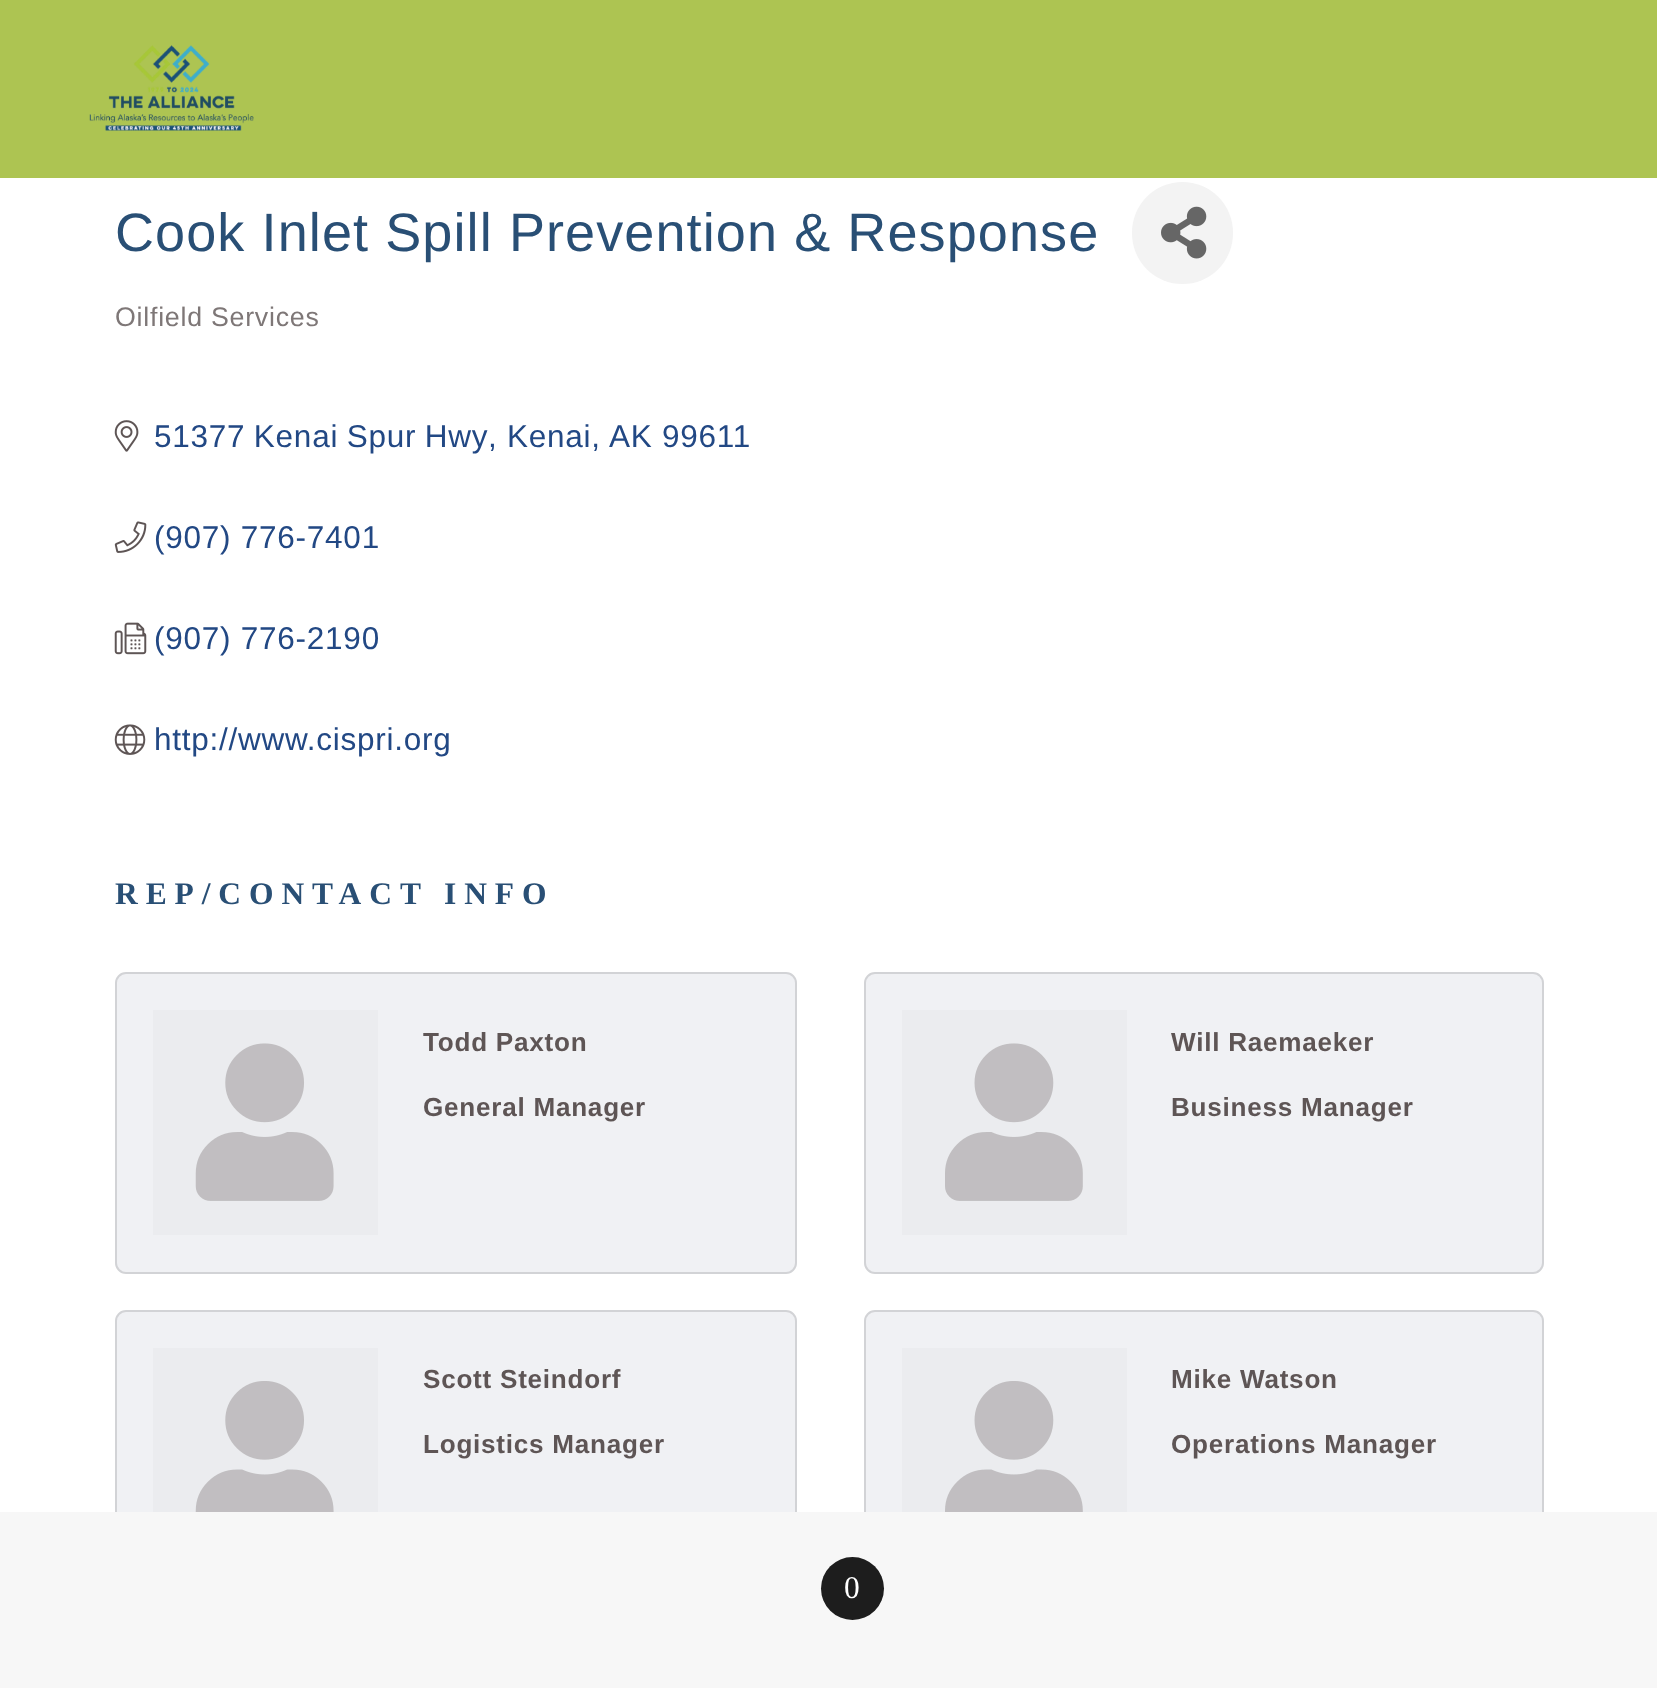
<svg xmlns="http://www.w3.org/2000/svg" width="1657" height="1688">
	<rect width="100%" height="100%" fill="#FFFFFF" />
	<text x="115" y="251" font-family="Liberation Sans" font-size="54" letter-spacing="1.1" fill="#294F75">Cook Inlet Spill Prevention &amp; Response</text>
	<rect x="1132" y="182" width="101" height="102" rx="50.5" fill="#F3F3F3" />
	<image x="1161" y="206" width="46" height="53" href="assets/img1.png" />
	<text x="115" y="326" font-family="Liberation Sans" font-size="26.75" letter-spacing="0.75" fill="#7E7777">Oilfield Services</text>
	<image x="114" y="420" width="25" height="32" href="assets/img2.png" />
	<g font-family="Liberation Sans" font-size="31.5" letter-spacing="0.75" fill="#224884">
		<text x="154" y="447" word-spacing="-1">51377 Kenai Spur Hwy</text>
		<text x="488" y="447">, Kenai,</text>
		<text x="609" y="447">AK 99611</text>
	</g>
	<image x="114" y="521" width="33" height="32" href="assets/img3.png" />
	<text x="154" y="548" font-family="Liberation Sans" font-size="31.5" letter-spacing="0.75" fill="#224884">(907) 776-7401</text>
	<image x="114" y="622" width="33" height="33" href="assets/img4.png" />
	<text x="154" y="649" font-family="Liberation Sans" font-size="31.5" letter-spacing="0.75" fill="#224884">(907) 776-2190</text>
	<image x="114" y="724" width="32" height="31" href="assets/img5.png" />
	<text x="154" y="750" font-family="Liberation Sans" font-size="31.5" letter-spacing="0.75" fill="#224884">http://www.cispri.org</text>
	<text x="115" y="904" font-family="Liberation Serif" font-size="31.5" font-weight="700" letter-spacing="7.9" fill="#294F75">REP/CONTACT INFO</text>
	<rect x="115" y="972" width="682" height="302" rx="11" fill="#F0F1F4" />
	<rect x="116" y="973" width="680" height="300" rx="10" fill="none" stroke="#000000" stroke-opacity="0.12" stroke-width="2" />
	<rect x="153" y="1010" width="225" height="225" fill="#EBECEF" />
	<image x="195" y="1043" width="139" height="158" href="assets/img6.png" />
	<g font-family="Liberation Sans" font-size="26.1" font-weight="700" letter-spacing="0.75" fill="#5E5555">
		<text x="423" y="1051">Todd Paxton</text>
		<text x="423" y="1116">General Manager</text>
	</g>
	<rect x="864" y="972" width="680" height="302" rx="11" fill="#F0F1F4" />
	<rect x="865" y="973" width="678" height="300" rx="10" fill="none" stroke="#000000" stroke-opacity="0.12" stroke-width="2" />
	<rect x="902" y="1010" width="225" height="225" fill="#EBECEF" />
	<image x="945" y="1043" width="138" height="158" href="assets/img7.png" />
	<g font-family="Liberation Sans" font-size="26.1" font-weight="700" letter-spacing="0.75" fill="#5E5555">
		<text x="1171" y="1051">Will Raemaeker</text>
		<text x="1171" y="1116">Business Manager</text>
	</g>
	<rect x="115" y="1310" width="682" height="301" rx="11" fill="#F0F1F4" />
	<rect x="116" y="1311" width="680" height="299" rx="10" fill="none" stroke="#000000" stroke-opacity="0.12" stroke-width="2" />
	<rect x="153" y="1348" width="225" height="164" fill="#EBECEF" />
	<image x="195" y="1381" width="139" height="131" href="assets/img8.png" />
	<g font-family="Liberation Sans" font-size="26.1" font-weight="700" letter-spacing="0.75" fill="#5E5555">
		<text x="423" y="1388">Scott Steindorf</text>
		<text x="423" y="1453">Logistics Manager</text>
	</g>
	<rect x="864" y="1310" width="680" height="301" rx="11" fill="#F0F1F4" />
	<rect x="865" y="1311" width="678" height="299" rx="10" fill="none" stroke="#000000" stroke-opacity="0.12" stroke-width="2" />
	<rect x="902" y="1348" width="225" height="164" fill="#EBECEF" />
	<image x="945" y="1381" width="138" height="131" href="assets/img9.png" />
	<g font-family="Liberation Sans" font-size="26.1" font-weight="700" letter-spacing="0.75" fill="#5E5555">
		<text x="1171" y="1388">Mike Watson</text>
		<text x="1171" y="1453">Operations Manager</text>
	</g>
	<rect x="0" y="0" width="1657" height="178" fill="#ADC452" />
	<image x="89" y="45" width="165" height="86" href="assets/img10.png" />
	<rect x="0" y="1512" width="1657" height="176" fill="#F7F7F7" />
	<circle cx="852.5" cy="1588.5" r="31.5" fill="#1D1D1D" />
	<text x="844" y="1598" font-family="Liberation Serif" font-size="31.5" fill="#FFFFFF">0</text>
</svg>
